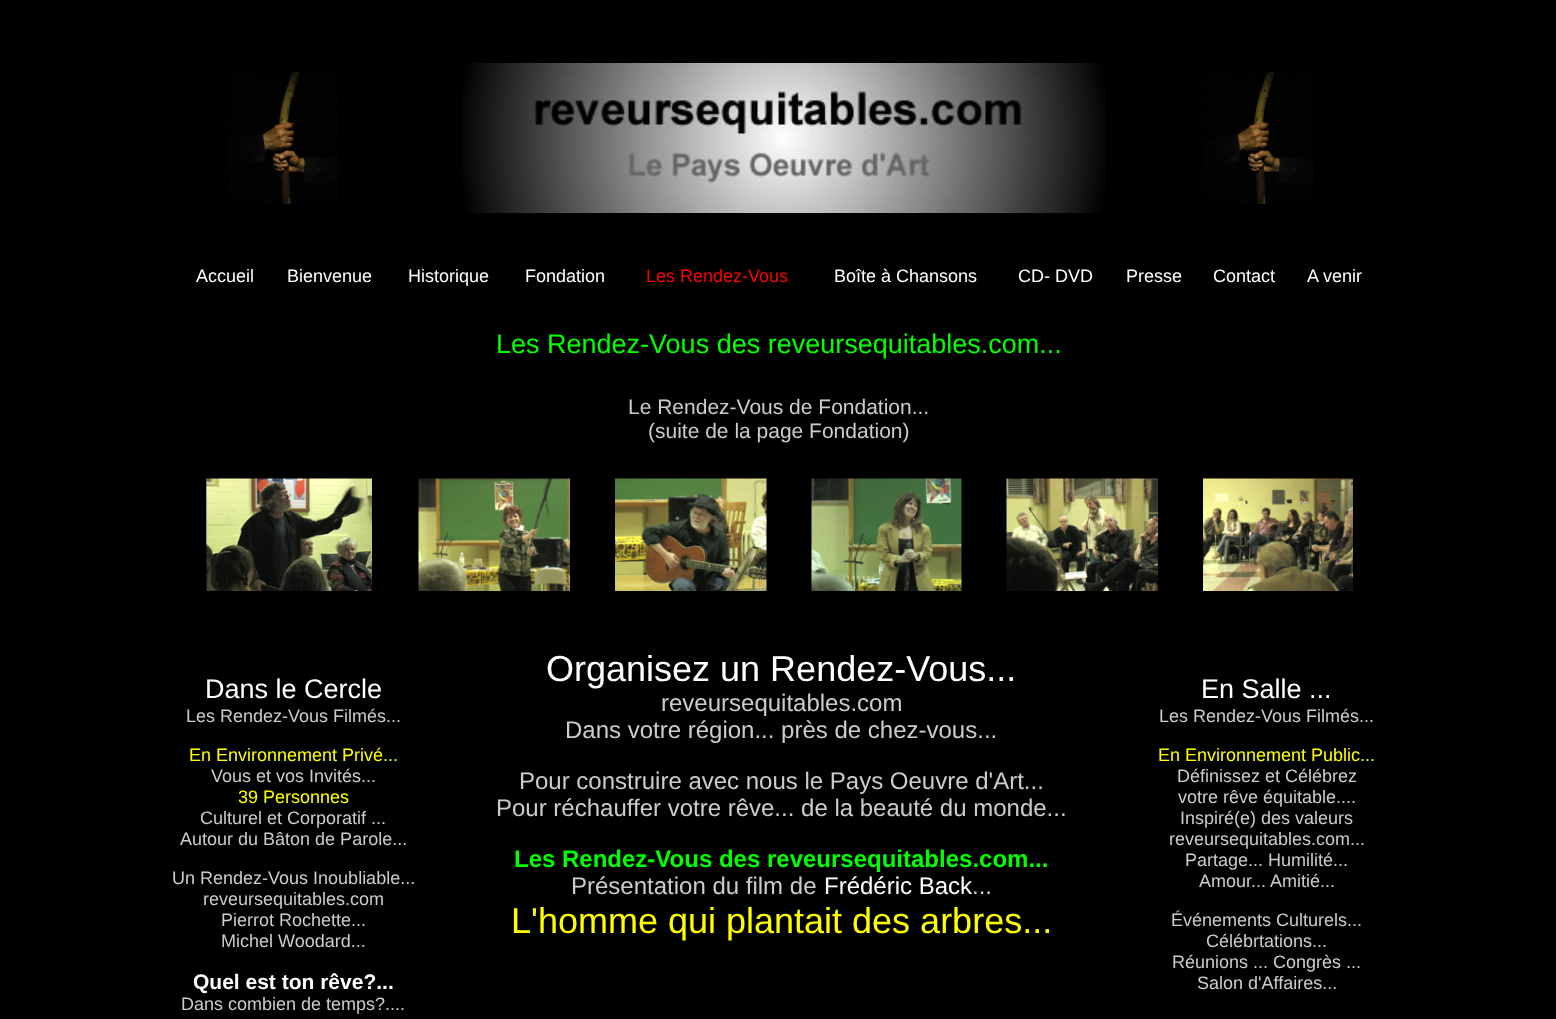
<svg xmlns="http://www.w3.org/2000/svg" width="1556" height="1019">
	<rect width="100%" height="100%" fill="#000000" />
	<image x="227" y="72" width="112" height="132" href="assets/img1.png" />
	<image x="461" y="63" width="645" height="150" href="assets/img2.png" />
	<image x="1202" y="72" width="112" height="132" href="assets/img1.png" />
	<g font-family="Liberation Sans" font-size="18" fill="#FFFFFF">
		<text x="196" y="282">Accueil</text>
		<text x="287" y="282">Bienvenue</text>
		<text x="408" y="282">Historique</text>
		<text x="525" y="282">Fondation</text>
	</g>
	<text x="646" y="282" font-family="Liberation Sans" font-size="18" fill="#FF0000">Les Rendez-Vous</text>
	<g font-family="Liberation Sans" font-size="18" fill="#FFFFFF">
		<text x="834" y="282">Boîte à Chansons</text>
		<text x="1018" y="282">CD- DVD</text>
		<text x="1126" y="282">Presse</text>
		<text x="1213" y="282">Contact</text>
		<text x="1307" y="282">A venir</text>
	</g>
	<text x="496" y="353" font-family="Liberation Sans" font-size="27" fill="#00FF00">Les Rendez-Vous des reveursequitables.com...</text>
	<g font-family="Liberation Sans" font-size="21" fill="#CCCCCC">
		<text x="628" y="414">Le Rendez-Vous de Fondation...</text>
		<text x="648" y="438">(suite de la page Fondation)</text>
	</g>
	<image x="206" y="478" width="166" height="113" href="assets/img3.png" />
	<image x="418" y="478" width="152" height="113" href="assets/img4.png" />
	<image x="615" y="478" width="152" height="113" href="assets/img5.png" />
	<image x="811" y="478" width="151" height="113" href="assets/img6.png" />
	<image x="1006" y="478" width="152" height="113" href="assets/img7.png" />
	<image x="1203" y="478" width="150" height="113" href="assets/img8.png" />
	<text x="205" y="698" font-family="Liberation Sans" font-size="27" fill="#FFFFFF">Dans le Cercle</text>
	<text x="186" y="722" font-family="Liberation Sans" font-size="18" fill="#CCCCCC">Les Rendez-Vous Filmés...</text>
	<text x="189" y="761" font-family="Liberation Sans" font-size="18" fill="#FFFF00">En Environnement Privé...</text>
	<text x="211" y="782" font-family="Liberation Sans" font-size="18" fill="#CCCCCC">Vous et vos Invités...</text>
	<text x="238" y="803" font-family="Liberation Sans" font-size="18" fill="#FFFF00">39 Personnes</text>
	<g font-family="Liberation Sans" font-size="18" fill="#CCCCCC">
		<text x="200" y="824">Culturel et Corporatif ...</text>
		<text x="180" y="845">Autour du Bâton de Parole...</text>
		<text x="172" y="884">Un Rendez-Vous Inoubliable...</text>
		<text x="203" y="905">reveursequitables.com</text>
		<text x="221" y="926">Pierrot Rochette...</text>
		<text x="221" y="947">Michel Woodard...</text>
	</g>
	<text x="193" y="989" font-family="Liberation Sans" font-size="21" font-weight="700" fill="#FFFFFF">Quel est ton rêve?...</text>
	<text x="181" y="1010" font-family="Liberation Sans" font-size="18" fill="#CCCCCC">Dans combien de temps?....</text>
	<text x="546" y="681" font-family="Liberation Sans" font-size="36" fill="#FFFFFF">Organisez un Rendez-Vous...</text>
	<g font-family="Liberation Sans" font-size="24" fill="#CCCCCC">
		<text x="661" y="711">reveursequitables.com</text>
		<text x="565" y="738">Dans votre région... près de chez-vous...</text>
		<text x="519" y="789">Pour construire avec nous le Pays Oeuvre d'Art...</text>
		<text x="496" y="816">Pour réchauffer votre rêve... de la beauté du monde...</text>
	</g>
	<text x="514" y="867" font-family="Liberation Sans" font-size="24" font-weight="700" fill="#00FF00">Les Rendez-Vous des reveursequitables.com...</text>
	<text x="571" y="894" font-family="Liberation Sans" font-size="24" fill="#CCCCCC">Présentation du film de</text>
	<text x="824" y="894" font-family="Liberation Sans" font-size="24" fill="#FFFFFF">Frédéric Back</text>
	<text x="972" y="894" font-family="Liberation Sans" font-size="24" fill="#CCCCCC">...</text>
	<text x="511" y="933" font-family="Liberation Sans" font-size="36" fill="#FFFF00">L'homme qui plantait des arbres...</text>
	<text x="1201" y="698" font-family="Liberation Sans" font-size="27" fill="#FFFFFF">En Salle ...</text>
	<text x="1159" y="722" font-family="Liberation Sans" font-size="18" fill="#CCCCCC">Les Rendez-Vous Filmés...</text>
	<text x="1158" y="761" font-family="Liberation Sans" font-size="18" fill="#FFFF00">En Environnement Public...</text>
	<g font-family="Liberation Sans" font-size="18" fill="#CCCCCC">
		<text x="1177" y="782">Définissez et Célébrez</text>
		<text x="1178" y="803">votre rêve équitable....</text>
		<text x="1180" y="824">Inspiré(e) des valeurs</text>
		<text x="1169" y="845">reveursequitables.com...</text>
		<text x="1185" y="866">Partage... Humilité...</text>
		<text x="1199" y="887">Amour... Amitié...</text>
		<text x="1171" y="926">Événements Culturels...</text>
		<text x="1206" y="947">Célébrtations...</text>
		<text x="1172" y="968">Réunions ... Congrès ...</text>
		<text x="1197" y="989">Salon d'Affaires...</text>
	</g>
</svg>
